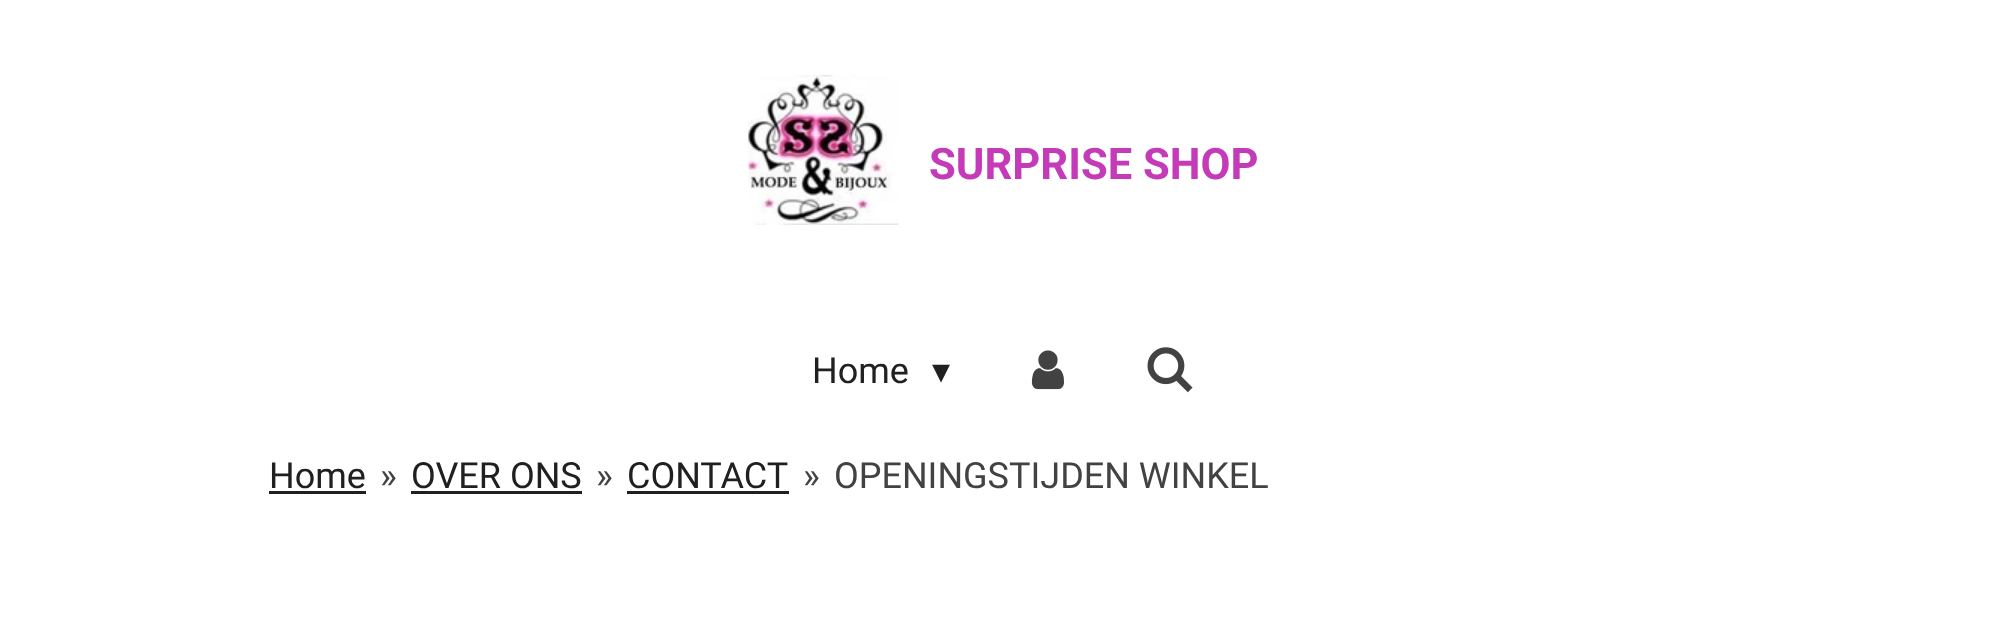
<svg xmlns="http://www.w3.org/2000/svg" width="2006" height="625">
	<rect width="100%" height="100%" fill="#FFFFFF" />
	<image x="748" y="75" width="151" height="150" href="assets/img1.png" />
	<text x="929" y="179" font-family="Roboto" font-size="43.5" font-weight="700" fill="#C43AB9">SURPRISE SHOP</text>
	<text x="812" y="383" font-family="Roboto" font-size="36" fill="#202020">Home</text>
	<text x="932" y="383" font-family="DejaVu Sans" font-size="36" fill="#202020">▾</text>
	<image x="1031" y="350" width="33" height="40" href="assets/img2.png" />
	<image x="1147" y="347" width="46" height="46" href="assets/img3.png" />
	<text x="269" y="488" font-family="Roboto" font-size="36" fill="#202020">Home</text>
	<rect x="269" y="491" width="97" height="3" fill="#202020" />
	<text x="380" y="488" font-family="Roboto" font-size="36" fill="#424242">»</text>
	<text x="411" y="488" font-family="Roboto" font-size="36" fill="#202020">OVER ONS</text>
	<rect x="411" y="491" width="171" height="3" fill="#202020" />
	<text x="596" y="488" font-family="Roboto" font-size="36" fill="#424242">»</text>
	<text x="627" y="488" font-family="Roboto" font-size="36" fill="#202020">CONTACT</text>
	<rect x="627" y="491" width="162" height="3" fill="#202020" />
	<g font-family="Roboto" font-size="36" fill="#424242">
		<text x="803" y="488">»</text>
		<text x="834" y="488">OPENINGSTIJDEN WINKEL</text>
	</g>
</svg>
